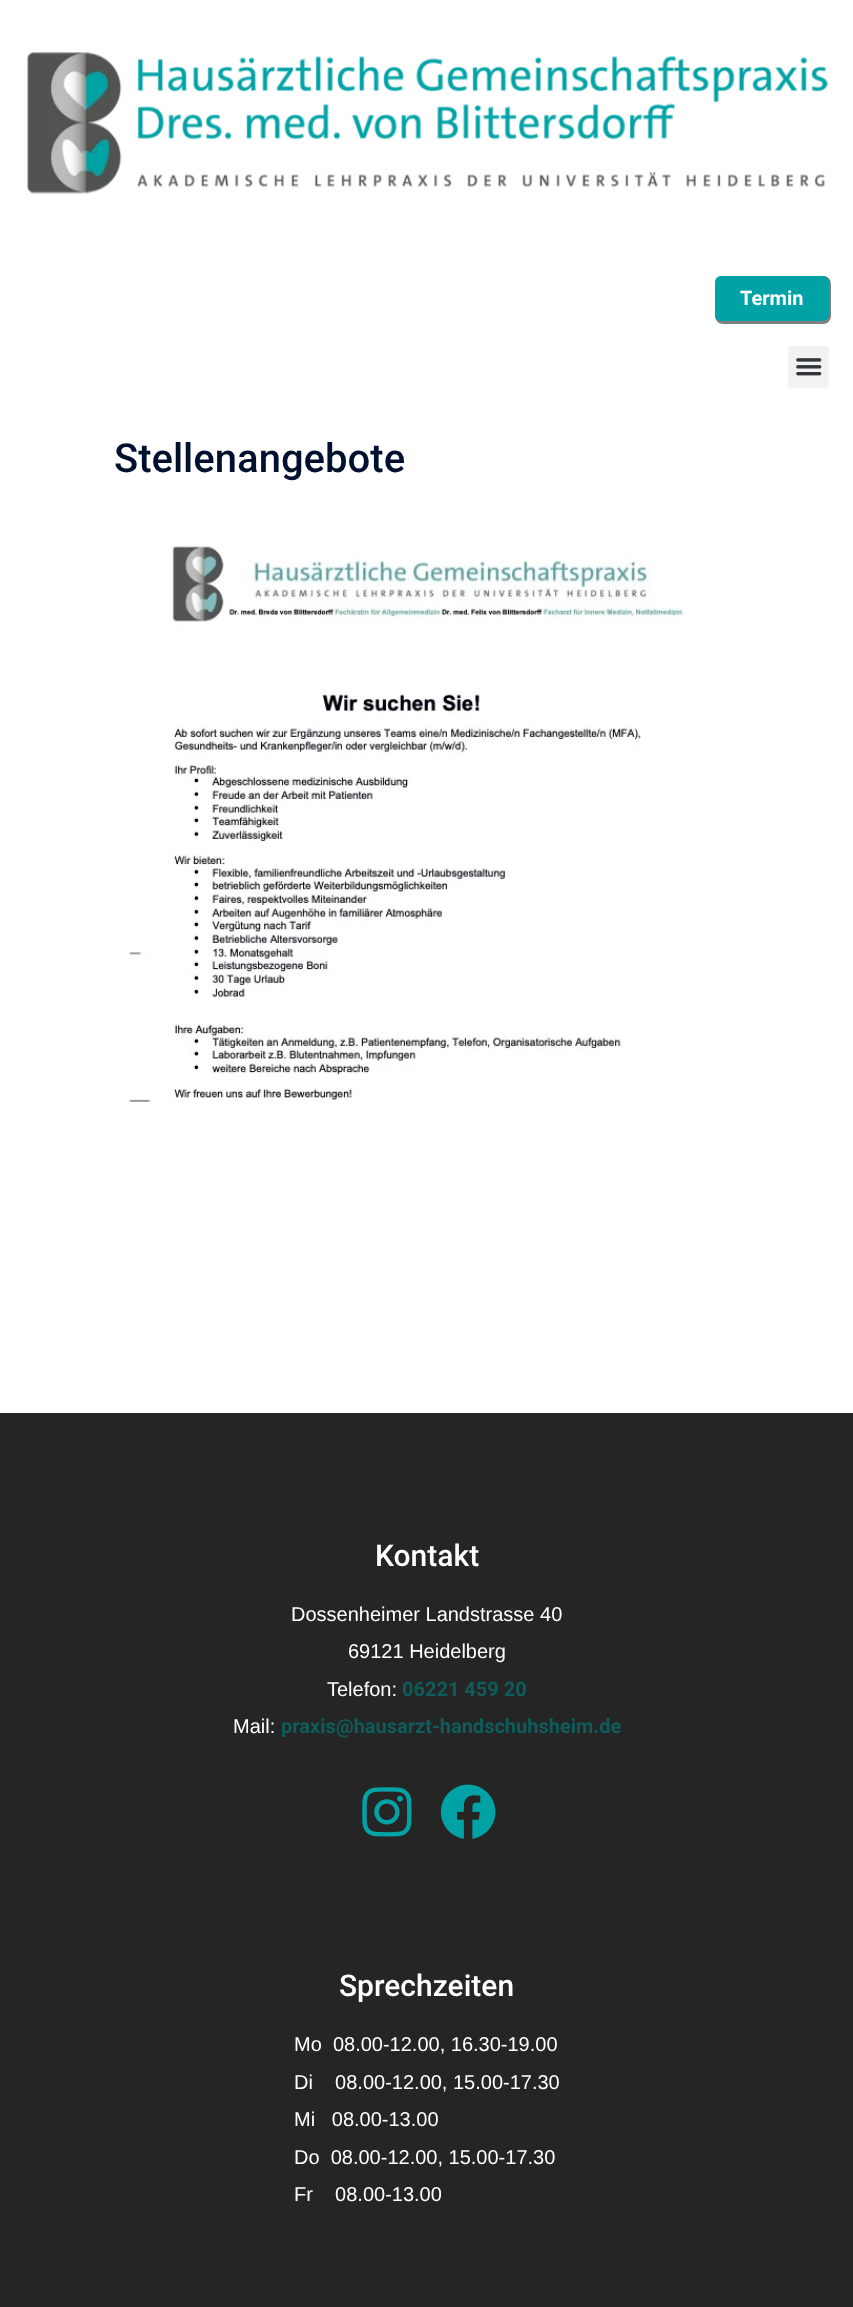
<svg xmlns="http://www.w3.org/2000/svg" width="853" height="2307">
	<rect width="100%" height="100%" fill="#FFFFFF" />
	<image x="27" y="52" width="801" height="143" href="assets/img1.png" />
	<rect x="715" y="276" width="116" height="48" rx="8" fill="#000000" fill-opacity="0.5" filter="blur(0.5px)" />
	<rect x="715" y="276" width="114" height="45" rx="6" fill="#00A2A5" />
	<text x="740" y="305" font-family="Roboto" font-size="20" font-weight="700" fill="#FFFFFF">Termin</text>
	<rect x="788" y="346" width="41" height="42" rx="4" fill="#F2F2F2" />
	<image x="796" y="358" width="26" height="18" href="assets/img2.png" />
	<text x="114" y="472" font-family="Roboto" font-size="40" font-weight="500" fill="#00102E">Stellenangebote</text>
	<image x="129" y="545" width="554" height="557" href="assets/img3.png" />
	<rect x="0" y="1413" width="853" height="894" fill="#252525" />
	<text x="375" y="1566" font-family="Roboto" font-size="30" font-weight="500" fill="#FFFFFF">Kontakt</text>
	<g font-family="Liberation Sans" font-size="20" fill="#FFFFFF">
		<text x="291" y="1621">Dossenheimer Landstrasse 40</text>
		<text x="348" y="1658">69121 Heidelberg</text>
		<text x="327" y="1696">Telefon:</text>
	</g>
	<text x="402" y="1696" font-family="Roboto" font-size="20" font-weight="700" fill="#0F5C5C">06221 459 20</text>
	<text x="233" y="1733" font-family="Liberation Sans" font-size="20" fill="#FFFFFF">Mail:</text>
	<text x="281" y="1733" font-family="Roboto" font-size="20" font-weight="700" fill="#0F5C5C">praxis@hausarzt-handschuhsheim.de</text>
	<image x="362" y="1787" width="50" height="50" href="assets/img4.png" />
	<image x="440" y="1784" width="56" height="55" href="assets/img5.png" />
	<text x="339" y="1996" font-family="Roboto" font-size="30" font-weight="500" fill="#FFFFFF">Sprechzeiten</text>
	<g font-family="Liberation Sans" font-size="20" fill="#FFFFFF">
		<text x="294" y="2051" xml:space="preserve">Mo  08.00-12.00, 16.30-19.00</text>
		<text x="294" y="2089" xml:space="preserve">Di    08.00-12.00, 15.00-17.30</text>
		<text x="294" y="2126" xml:space="preserve">Mi   08.00-13.00</text>
		<text x="294" y="2164" xml:space="preserve">Do  08.00-12.00, 15.00-17.30</text>
		<text x="294" y="2201" xml:space="preserve">Fr    08.00-13.00</text>
	</g>
</svg>
